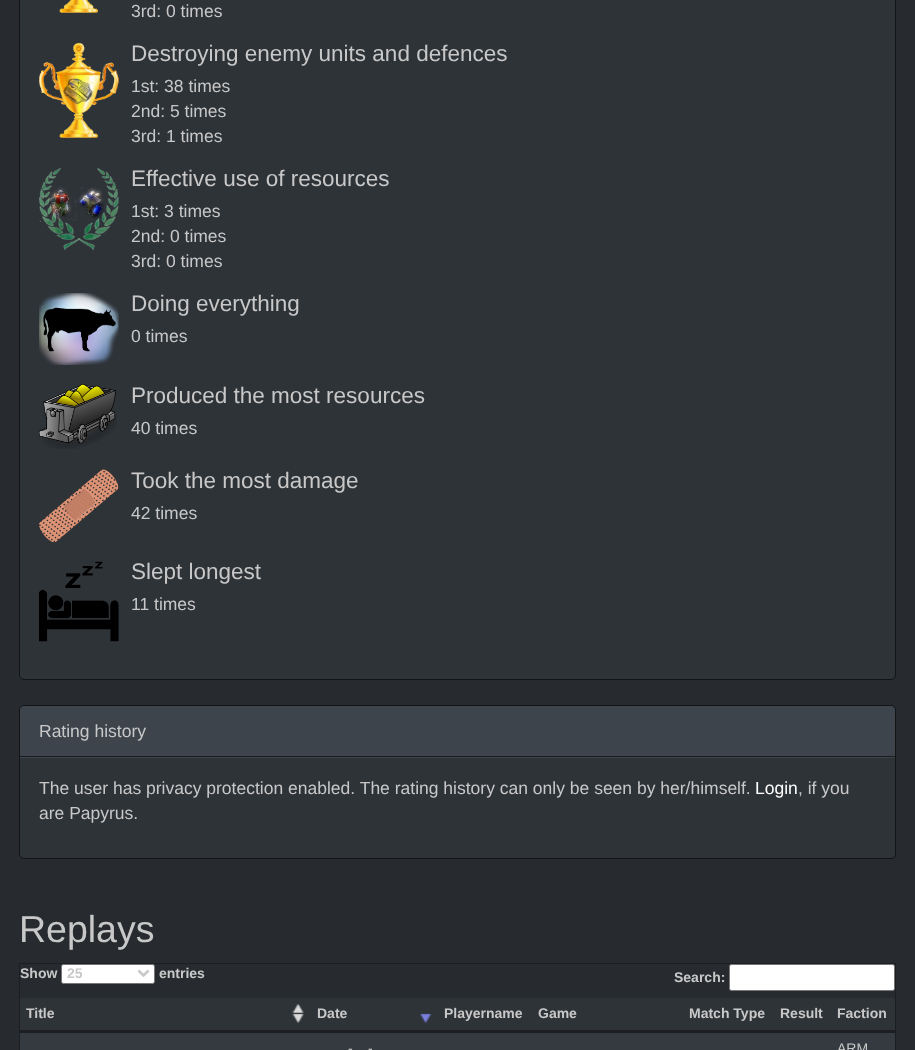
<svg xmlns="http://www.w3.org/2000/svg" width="915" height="1050">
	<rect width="100%" height="100%" fill="#272B30" />
	<rect x="19" y="-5" width="877" height="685" rx="5" fill="#2E3338" />
	<rect x="19.5" y="-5.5" width="876" height="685" rx="4.5" fill="none" stroke="#000000" stroke-opacity="0.6" />
	<image x="59" y="0" width="39" height="13" href="assets/img1.png" />
	<text x="131" y="17" font-family="Liberation Sans" font-size="17.5" fill="#C8C8C8">3rd: 0 times</text>
	<image x="38" y="42" width="81" height="96" href="assets/img2.png" />
	<text x="131" y="61" font-family="Liberation Sans" font-size="22.5" fill="#C8C8C8">Destroying enemy units and defences</text>
	<g font-family="Liberation Sans" font-size="17.5" fill="#C8C8C8">
		<text x="131" y="92">1st: 38 times</text>
		<text x="131" y="117">2nd: 5 times</text>
		<text x="131" y="142">3rd: 1 times</text>
	</g>
	<image x="39" y="168" width="80" height="83" href="assets/img3.png" />
	<text x="131" y="186" font-family="Liberation Sans" font-size="22.5" fill="#C8C8C8">Effective use of resources</text>
	<g font-family="Liberation Sans" font-size="17.5" fill="#C8C8C8">
		<text x="131" y="217">1st: 3 times</text>
		<text x="131" y="242">2nd: 0 times</text>
		<text x="131" y="267">3rd: 0 times</text>
	</g>
	<image x="39" y="293" width="80" height="72" href="assets/img4.png" />
	<text x="131" y="311" font-family="Liberation Sans" font-size="22.5" fill="#C8C8C8">Doing everything</text>
	<text x="131" y="342" font-family="Liberation Sans" font-size="17.5" fill="#C8C8C8">0 times</text>
	<image x="39" y="384" width="78" height="65" href="assets/img5.png" />
	<text x="131" y="403" font-family="Liberation Sans" font-size="22.5" fill="#C8C8C8">Produced the most resources</text>
	<text x="131" y="434" font-family="Liberation Sans" font-size="17.5" fill="#C8C8C8">40 times</text>
	<image x="39" y="469" width="80" height="74" href="assets/img6.png" />
	<text x="131" y="488" font-family="Liberation Sans" font-size="22.5" fill="#C8C8C8">Took the most damage</text>
	<text x="131" y="519" font-family="Liberation Sans" font-size="17.5" fill="#C8C8C8">42 times</text>
	<image x="39" y="561" width="80" height="81" href="assets/img7.png" />
	<text x="131" y="579" font-family="Liberation Sans" font-size="22.5" fill="#C8C8C8">Slept longest</text>
	<text x="131" y="610" font-family="Liberation Sans" font-size="17.5" fill="#C8C8C8">11 times</text>
	<rect x="19" y="705" width="877" height="154" rx="5" fill="#2E3338" />
	<rect x="19.5" y="705.5" width="876" height="153" rx="4.5" fill="none" stroke="#000000" stroke-opacity="0.6" />
	<path d="M24 706H891C893 706 895 708 895 710V758H20V710C20 708 22 706 24 706Z" fill="#3E444C" />
	<rect x="20" y="756" width="875" height="1" fill="#191B1E" />
	<g font-family="Liberation Sans" font-size="17.5" fill="#C8C8C8">
		<text x="39" y="737">Rating history</text>
		<text x="39" y="794">The user has privacy protection enabled. The rating history can only be seen by her/himself.</text>
	</g>
	<text x="755" y="794" font-family="Liberation Sans" font-size="17.5" fill="#FFFFFF">Login</text>
	<g font-family="Liberation Sans" font-size="17.5" fill="#C8C8C8">
		<text x="798" y="794">, if you</text>
		<text x="39" y="819">are Papyrus.</text>
	</g>
	<text x="19" y="942" font-family="Liberation Sans" font-size="37.5" fill="#C8C8C8">Replays</text>
	<rect x="19.5" y="963.5" width="876" height="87" fill="none" stroke="#1C1E22" />
	<text x="20" y="978" font-family="Liberation Sans" font-size="14" font-weight="700" fill="#C8C8C8">Show</text>
	<rect x="61.5" y="964.5" width="93" height="19" rx="2" fill="#FFFFFF" stroke="#767676" />
	<path d="M138.5 970.5L143.5 975.5L148.5 970.5" fill="none" stroke="#C8C8C8" stroke-width="2.5" />
	<g font-family="Liberation Sans" font-size="14" font-weight="700" fill="#C8C8C8">
		<text x="67" y="978">25</text>
		<text x="159" y="978">entries</text>
		<text x="674" y="982">Search:</text>
	</g>
	<rect x="729.5" y="964.5" width="165" height="26" rx="2" fill="#FFFFFF" stroke="#767676" />
	<rect x="20" y="998" width="875" height="32" fill="#2E3338" />
	<image x="292" y="1004" width="12" height="19" href="assets/img8.png" />
	<text x="26" y="1018" font-family="Liberation Sans" font-size="14" font-weight="700" fill="#C8C8C8">Title</text>
	<image x="420" y="1013" width="12" height="10" href="assets/img9.png" />
	<g font-family="Liberation Sans" font-size="14" font-weight="700" fill="#C8C8C8">
		<text x="317" y="1018">Date</text>
		<text x="444" y="1018">Playername</text>
		<text x="538" y="1018">Game</text>
		<text x="689" y="1018">Match Type</text>
		<text x="780" y="1018">Result</text>
	</g>
	<rect x="20" y="1030" width="875" height="3" fill="#1C1E22" />
	<text x="837" y="1018" font-family="Liberation Sans" font-size="14" font-weight="700" fill="#C8C8C8">Faction</text>
	<rect x="20" y="1033" width="875" height="17" fill="#353A41" />
	<g font-family="Liberation Sans" font-size="14" fill="#C8C8C8">
		<text x="348" y="1053">-</text>
		<text x="368" y="1053">-</text>
		<text x="837" y="1053">ARM</text>
	</g>
</svg>
